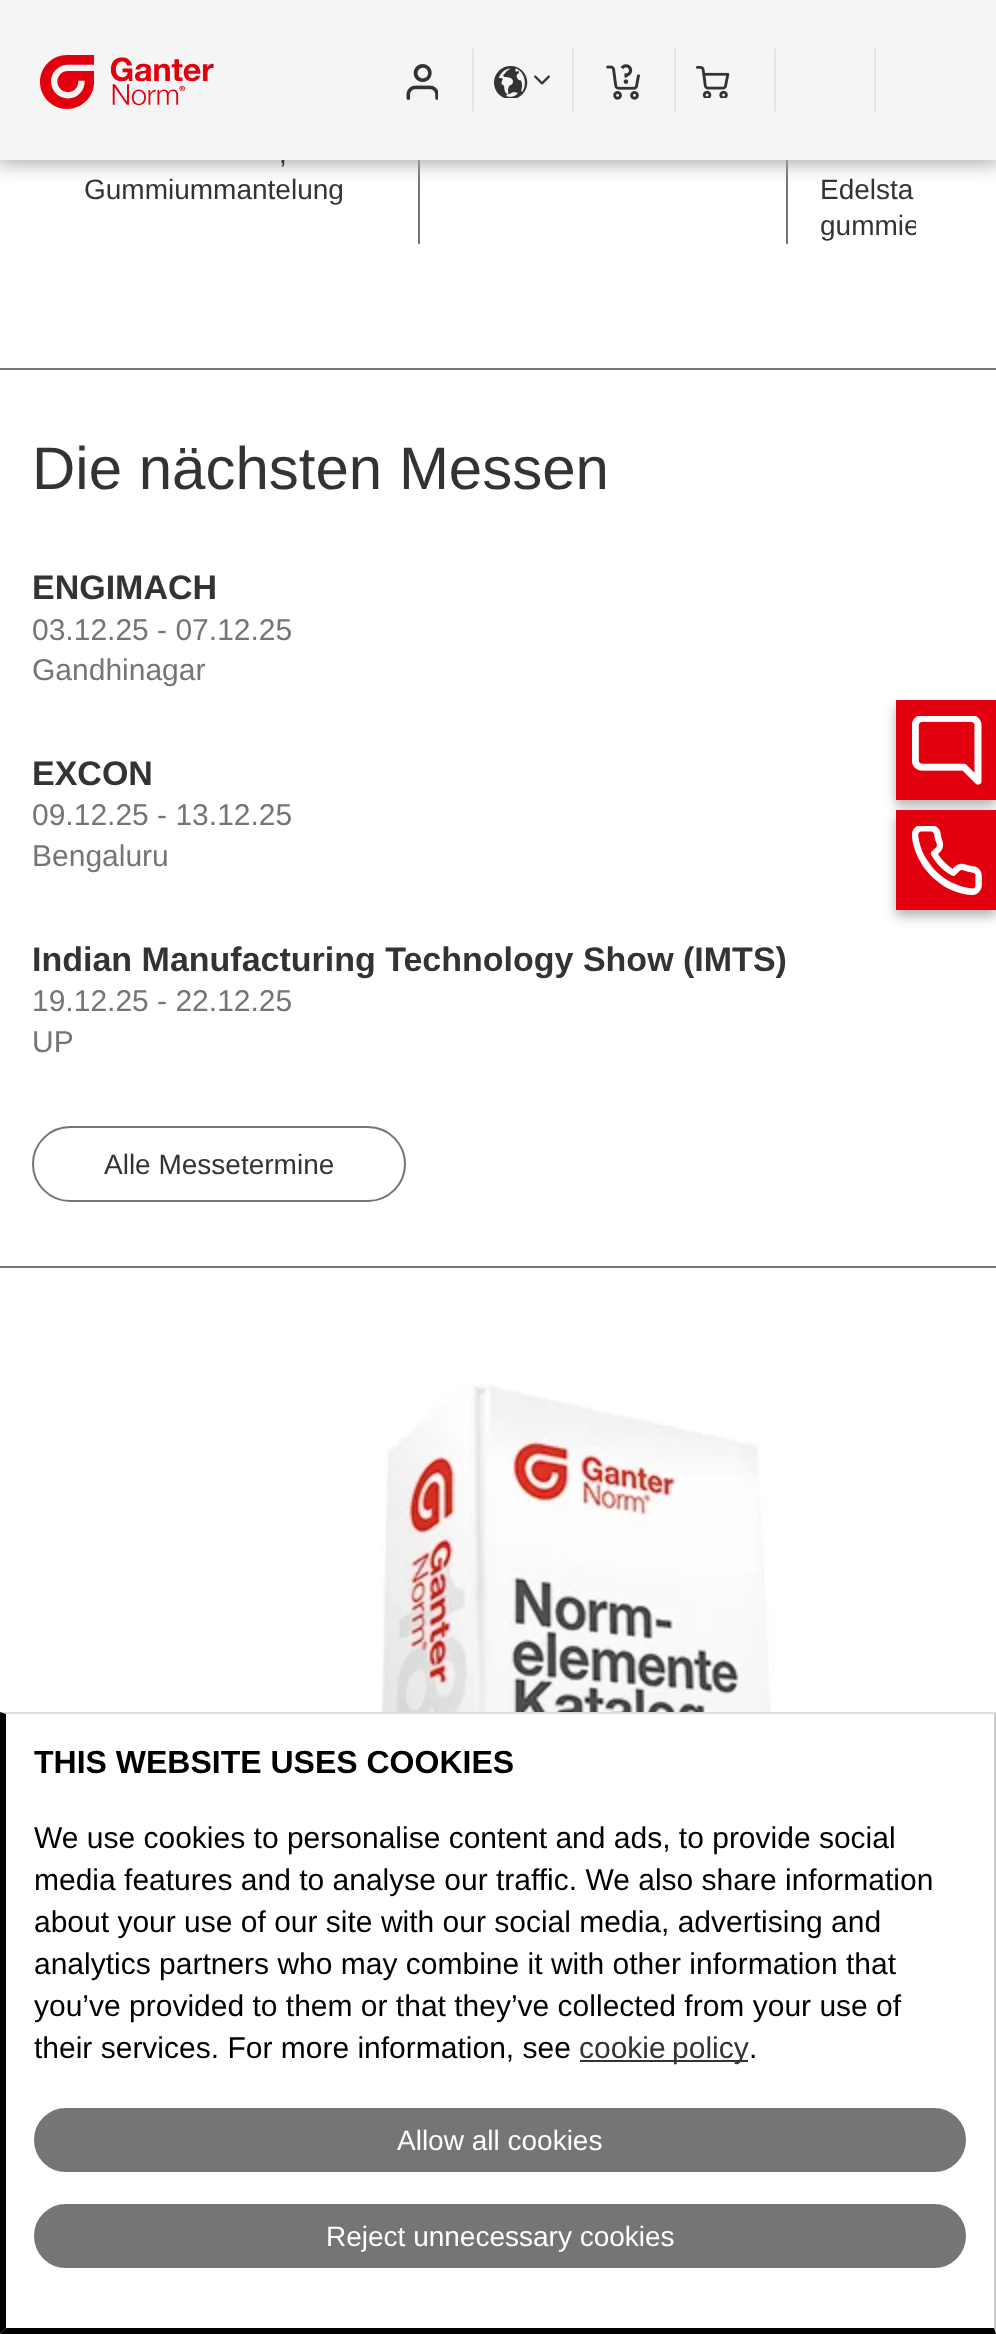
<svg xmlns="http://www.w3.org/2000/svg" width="996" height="2334">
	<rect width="100%" height="100%" fill="#FFFFFF" />
	<rect x="418" y="160" width="2" height="84" fill="#757575" />
	<rect x="786" y="160" width="2" height="84" fill="#757575" />
	<rect x="-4" y="-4" width="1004" height="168" fill="#ADADAD" filter="blur(10px)" />
	<rect x="0" y="0" width="996" height="160" fill="#F5F5F5" />
	<image x="40" y="55" width="174" height="54" href="assets/img1.png" />
	<image x="472" y="48" width="2" height="65" href="assets/img2.png" />
	<image x="406" y="64" width="32" height="36" href="assets/img3.png" />
	<image x="572" y="48" width="2" height="65" href="assets/img2.png" />
	<image x="494" y="66" width="34" height="32" href="assets/img4.png" />
	<image x="534" y="75" width="16" height="10" href="assets/img5.png" />
	<image x="674" y="48" width="2" height="65" href="assets/img2.png" />
	<image x="606" y="64" width="34" height="36" href="assets/img6.png" />
	<image x="774" y="48" width="2" height="65" href="assets/img2.png" />
	<image x="696" y="66" width="34" height="32" href="assets/img7.png" />
	<image x="874" y="48" width="2" height="65" href="assets/img2.png" />
	<rect x="0" y="368" width="996" height="2" fill="#757575" />
	<g font-family="Liberation Sans" font-size="28" fill="#333333">
		<text x="279" y="163">,</text>
		<text x="84" y="199">Gummiummantelung</text>
		<text x="820" y="199">Edelsta</text>
		<text x="820" y="235">gummie</text>
	</g>
	<rect x="916" y="221" width="3" height="14" fill="#FFFFFF" />
	<text x="32" y="489" font-family="Liberation Sans" font-size="60" fill="#333333">Die nächsten Messen</text>
	<text x="32" y="599" font-family="Liberation Sans" font-size="34" font-weight="700" fill="#333333">ENGIMACH</text>
	<g font-family="Liberation Sans" font-size="30" fill="#757575">
		<text x="32" y="640">03.12.25 - 07.12.25</text>
		<text x="32" y="680">Gandhinagar</text>
	</g>
	<text x="32" y="785" font-family="Liberation Sans" font-size="34" font-weight="700" fill="#333333">EXCON</text>
	<g font-family="Liberation Sans" font-size="30" fill="#757575">
		<text x="32" y="825">09.12.25 - 13.12.25</text>
		<text x="32" y="866">Bengaluru</text>
	</g>
	<text x="32" y="971" font-family="Liberation Sans" font-size="34" font-weight="700" fill="#333333">Indian Manufacturing Technology Show (IMTS)</text>
	<g font-family="Liberation Sans" font-size="30" fill="#757575">
		<text x="32" y="1011">19.12.25 - 22.12.25</text>
		<text x="32" y="1052">UP</text>
	</g>
	<rect x="33" y="1127" width="372" height="74" rx="37" fill="none" stroke="#757575" stroke-width="2" />
	<text x="104" y="1174" font-family="Liberation Sans" font-size="28" fill="#333333">Alle Messetermine</text>
	<rect x="0" y="1266" width="996" height="2" fill="#757575" />
	<image x="198" y="1384" width="582" height="328" href="assets/img8.png" />
	<rect x="896" y="706" width="100" height="100" fill="#000000" fill-opacity="0.3" filter="blur(6px)" />
	<rect x="896" y="700" width="100" height="100" fill="#E3000E" />
	<image x="912" y="716" width="70" height="69" href="assets/img9.png" />
	<rect x="896" y="816" width="100" height="100" fill="#000000" fill-opacity="0.3" filter="blur(6px)" />
	<rect x="896" y="810" width="100" height="100" fill="#E3000E" />
	<image x="912" y="826" width="70" height="69" href="assets/img10.png" />
	<path d="M0 1712H996L994 1714H6Z" fill="#E2DEDB" />
	<path d="M996 1712V2334L994 2328V1714Z" fill="#CCCCCC" />
	<path d="M996 2334H0L6 2328H994Z" fill="#000000" />
	<path d="M0 2334V1712L6 1714V2328Z" fill="#000000" />
	<text x="34" y="1773" font-family="Liberation Sans" font-size="32" font-weight="700" fill="#000000">THIS WEBSITE USES COOKIES</text>
	<g font-family="Liberation Sans" font-size="30" fill="#000000">
		<text x="34" y="1848">We use cookies to personalise content and ads, to provide social</text>
		<text x="34" y="1890">media features and to analyse our traffic. We also share information</text>
		<text x="34" y="1932">about your use of our site with our social media, advertising and</text>
		<text x="34" y="1974">analytics partners who may combine it with other information that</text>
		<text x="34" y="2016">you’ve provided to them or that they’ve collected from your use of</text>
		<text x="34" y="2058">their services. For more information, see</text>
	</g>
	<rect x="580" y="2060" width="168" height="2" fill="#333333" />
	<text x="579" y="2058" word-spacing="-2" font-family="Liberation Sans" font-size="30" fill="#333333">cookie policy</text>
	<text x="749" y="2058" font-family="Liberation Sans" font-size="30" fill="#000000">.</text>
	<rect x="35" y="2109" width="930" height="62" rx="31" fill="#757575" stroke="#757575" stroke-width="2" />
	<text x="397" y="2150" font-family="Liberation Sans" font-size="28" fill="#FFFFFF">Allow all cookies</text>
	<rect x="35" y="2205" width="930" height="62" rx="31" fill="#757575" stroke="#757575" stroke-width="2" />
	<text x="326" y="2246" font-family="Liberation Sans" font-size="28" fill="#FFFFFF">Reject unnecessary cookies</text>
</svg>
